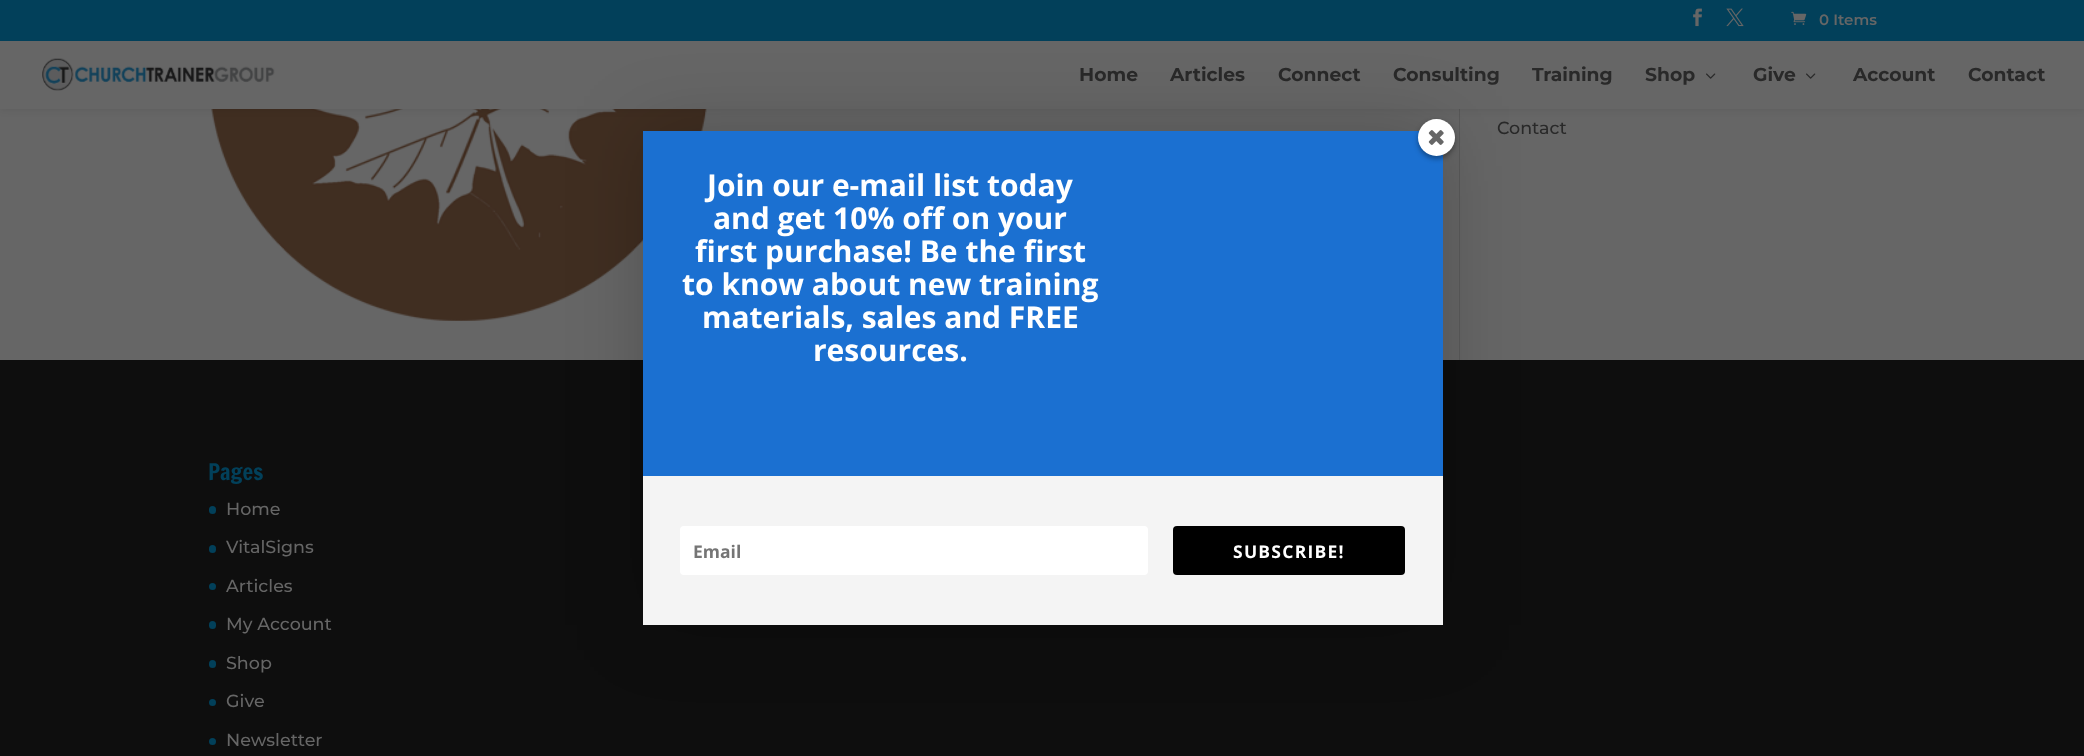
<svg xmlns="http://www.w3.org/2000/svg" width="2084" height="756">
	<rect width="100%" height="100%" fill="#666666" />
	<rect x="1459" y="109" width="1" height="251" fill="#5A5A5A" />
	<image x="211" y="109" width="496" height="212" href="assets/img6.png" />
	<rect x="0" y="41" width="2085" height="68" fill="#000000" fill-opacity="0.1" filter="blur(4.5px)" />
	<rect x="0" y="0" width="2084" height="41" fill="#02405A" />
	<image x="1693" y="8" width="9" height="19" href="assets/img1.png" />
	<image x="1726" y="8" width="18" height="19" href="assets/img2.png" />
	<image x="1791" y="11" width="16" height="14" href="assets/img3.png" />
	<text x="1819" y="25" font-family="Montserrat" font-size="15" font-weight="600" fill="#666666">0 Items</text>
	<rect x="0" y="41" width="2084" height="68" fill="#666666" />
	<image x="42" y="58" width="233" height="33" href="assets/img4.png" />
	<g font-family="Montserrat" font-size="18.75" font-weight="700" fill="#292929">
		<text x="1079" y="81">Home</text>
		<text x="1170" y="81">Articles</text>
		<text x="1278" y="81">Connect</text>
		<text x="1393" y="81">Consulting</text>
		<text x="1532" y="81">Training</text>
		<text x="1645" y="81">Shop</text>
	</g>
	<image x="1706" y="73" width="10" height="6" href="assets/img5.png" />
	<text x="1753" y="81" font-family="Montserrat" font-size="18.75" font-weight="700" fill="#292929">Give</text>
	<image x="1806" y="73" width="10" height="6" href="assets/img5.png" />
	<g font-family="Montserrat" font-size="18.75" font-weight="700" fill="#292929">
		<text x="1853" y="81">Account</text>
		<text x="1968" y="81">Contact</text>
	</g>
	<text x="1497" y="134" font-family="Montserrat" font-size="17.5" font-weight="500" fill="#292929">Contact</text>
	<rect x="0" y="360" width="2084" height="396" fill="#0E0E0E" />
	<text x="208" y="480" font-family="Francois One" font-size="22.5" fill="#02405A">Pages</text>
	<rect x="209" y="506" width="7" height="8" rx="3.5" fill="#02405A" />
	<text x="226" y="515" font-family="Montserrat" font-size="17.5" font-weight="500" fill="#666666">Home</text>
	<rect x="209" y="545" width="7" height="8" rx="3.5" fill="#02405A" />
	<text x="226" y="553" font-family="Montserrat" font-size="17.5" font-weight="500" fill="#666666">VitalSigns</text>
	<circle cx="212.5" cy="586.5" r="3.5" fill="#02405A" />
	<text x="226" y="592" font-family="Montserrat" font-size="17.5" font-weight="500" fill="#666666">Articles</text>
	<rect x="209" y="621" width="7" height="8" rx="3.5" fill="#02405A" />
	<text x="226" y="630" font-family="Montserrat" font-size="17.5" font-weight="500" fill="#666666">My Account</text>
	<rect x="209" y="660" width="7" height="8" rx="3.5" fill="#02405A" />
	<text x="226" y="669" font-family="Montserrat" font-size="17.5" font-weight="500" fill="#666666">Shop</text>
	<circle cx="212.5" cy="702.5" r="3.5" fill="#02405A" />
	<text x="226" y="707" font-family="Montserrat" font-size="17.5" font-weight="500" fill="#666666">Give</text>
	<circle cx="212.5" cy="741.5" r="3.5" fill="#02405A" />
	<text x="226" y="746" font-family="Montserrat" font-size="17.5" font-weight="500" fill="#666666">Newsletter</text>
	<rect x="643" y="131" width="800" height="494" fill="#000000" fill-opacity="0.2" filter="blur(37.5px)" />
	<rect x="643" y="131" width="800" height="345" fill="#1B70D1" />
	<rect x="1418" y="121" width="37" height="38" rx="18.5" fill="#000000" fill-opacity="0.34" filter="blur(2.5px)" />
	<circle cx="1436.5" cy="137.5" r="18.5" fill="#FFFFFF" />
	<image x="1428" y="130" width="16" height="15" href="assets/img7.png" />
	<g font-family="Open Sans" font-size="30" font-weight="700" fill="#FFFFFF">
		<text x="707" y="196">Join our e-mail list today</text>
		<text x="713" y="229">and get 10% off on your</text>
		<text x="695" y="262">first purchase! Be the first</text>
		<text x="682" y="295">to know about new training</text>
		<text x="702" y="328">materials, sales and FREE</text>
		<text x="813" y="361">resources.</text>
	</g>
	<rect x="643" y="476" width="800" height="149" fill="#F4F4F4" />
	<rect x="680" y="526" width="468" height="49" rx="4" fill="#FFFFFF" />
	<text x="693" y="558" font-family="Open Sans" font-size="17.5" font-weight="700" fill="#757575">Email</text>
	<rect x="1173" y="526" width="232" height="49" rx="4" fill="#000000" />
	<text x="1233" y="558" font-family="Open Sans" font-size="17.5" font-weight="700" letter-spacing="1.25" fill="#FFFFFF">SUBSCRIBE!</text>
</svg>
